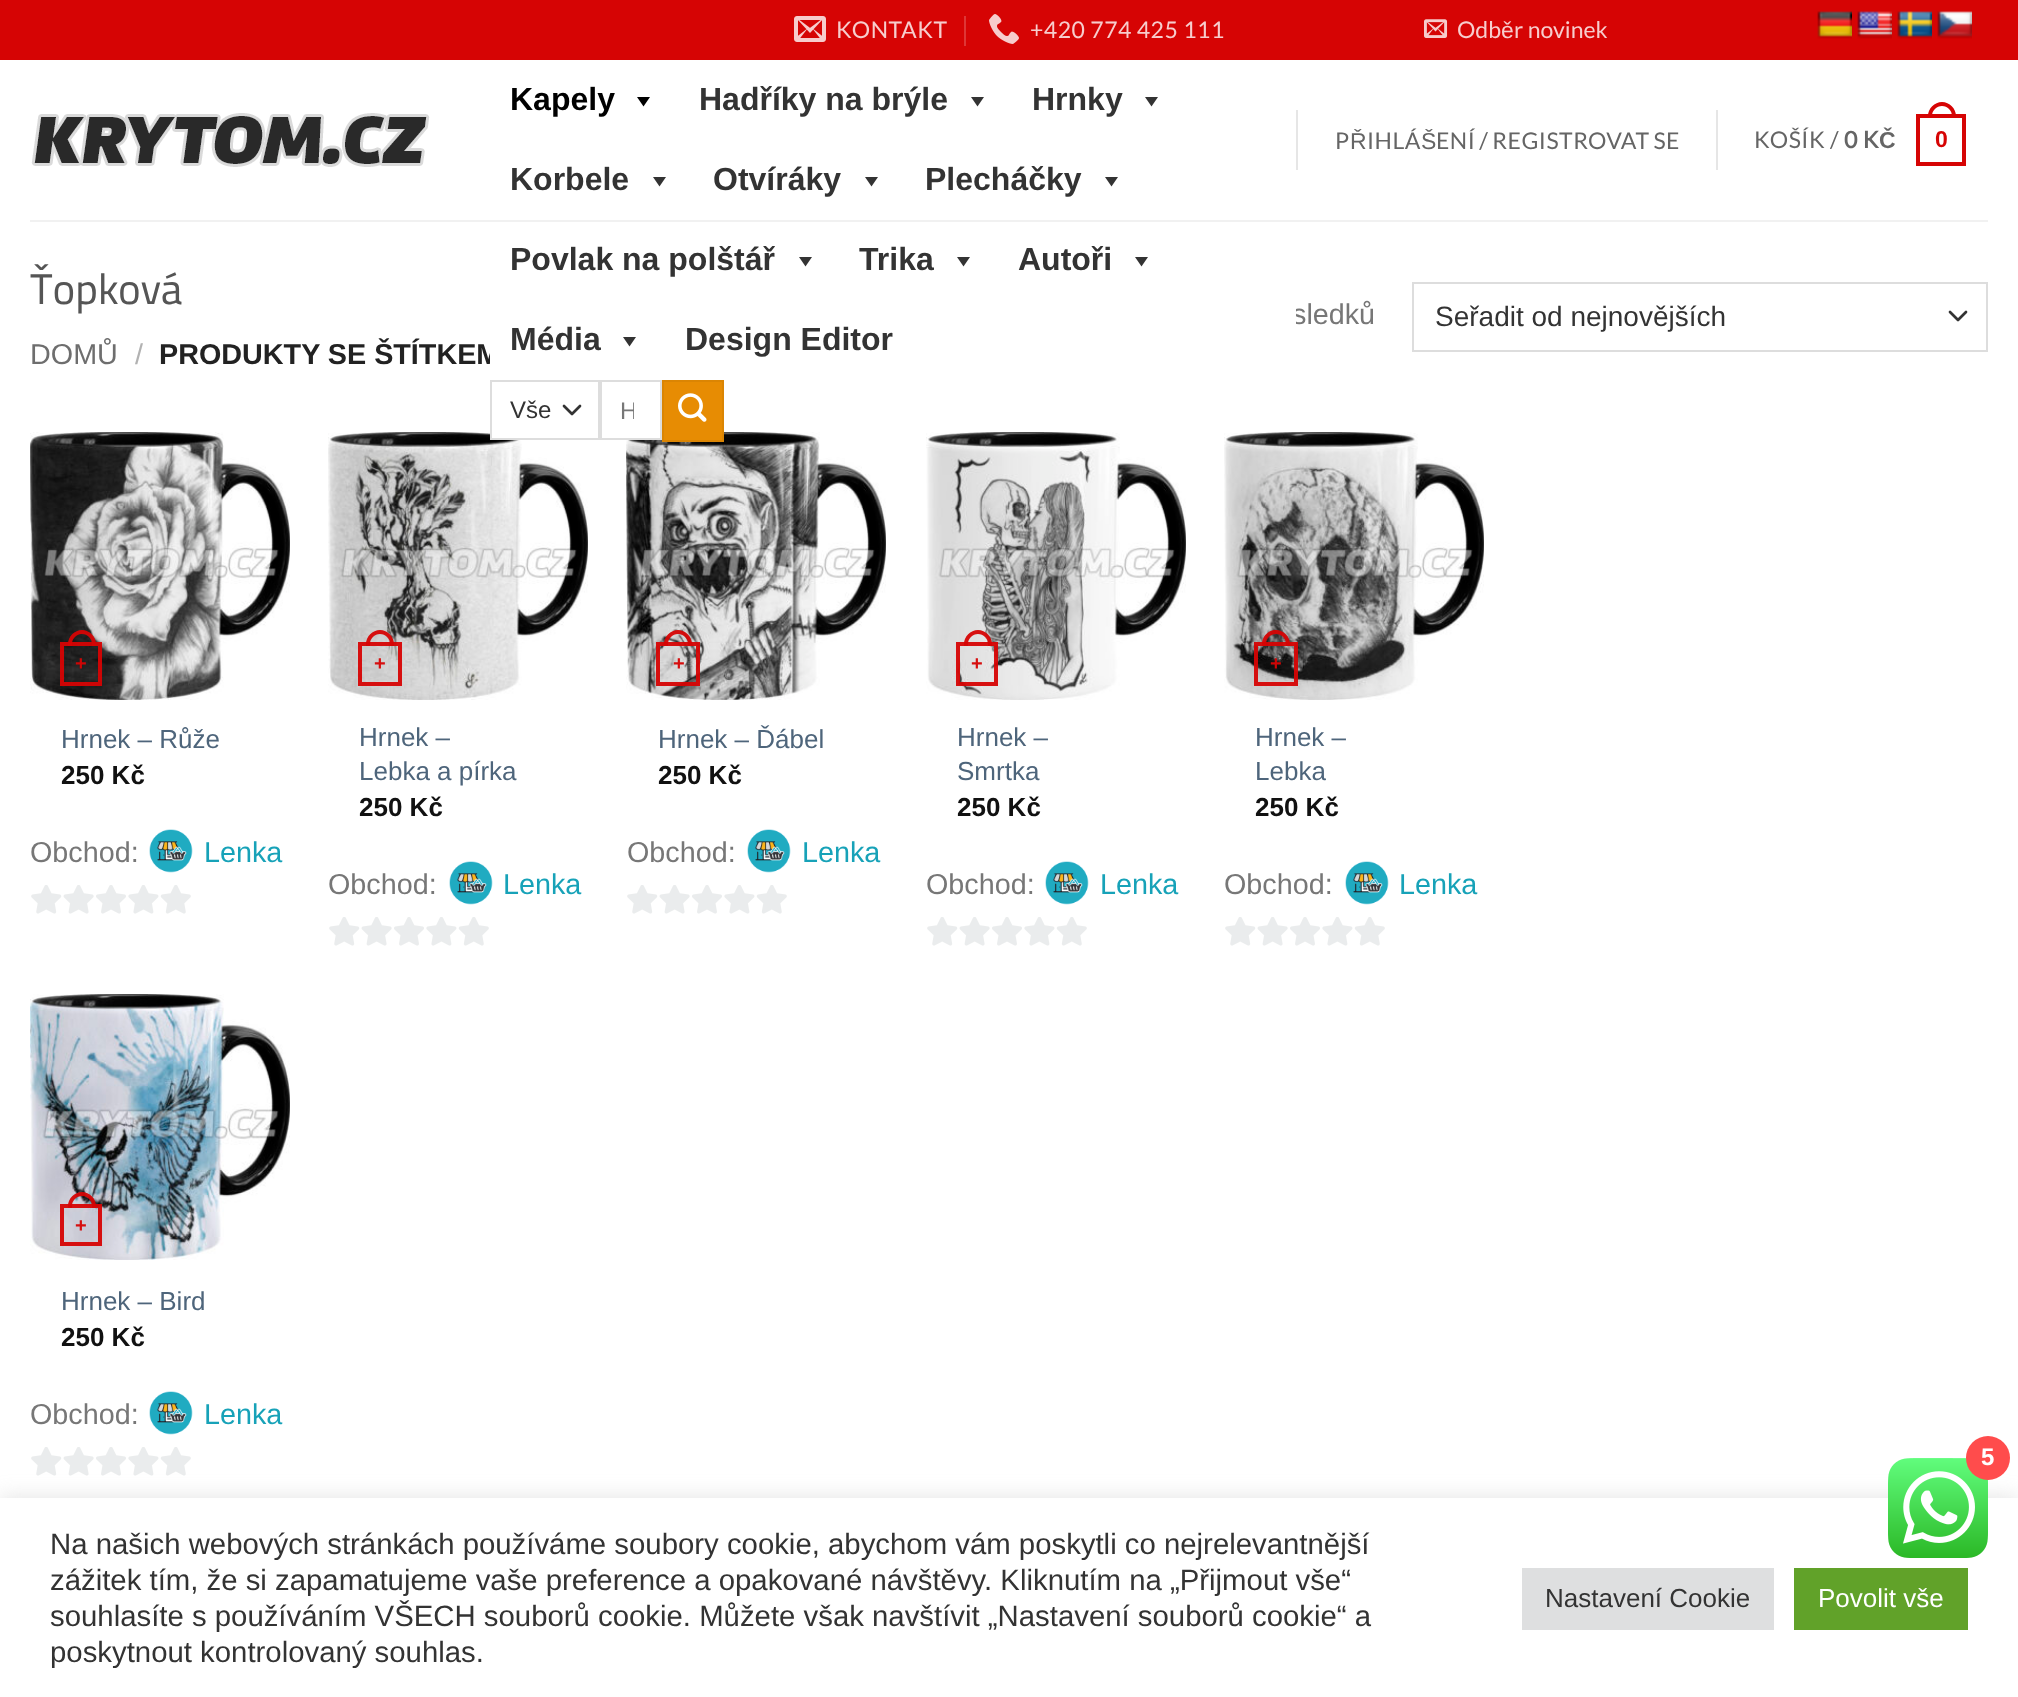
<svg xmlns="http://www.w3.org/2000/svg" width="2018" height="1697">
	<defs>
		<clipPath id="clip1"><rect x="620" y="396" width="14" height="28" /></clipPath>
	</defs>
	<rect width="100%" height="100%" fill="#FFFFFF" />
	<rect x="0" y="0" width="2018" height="60" fill="#D60404" />
	<image x="794" y="16" width="32" height="26" href="assets/img1.png" />
	<text x="836" y="38" font-family="Lato" font-size="23" letter-spacing="0.5" fill="#F7CDCD">KONTAKT</text>
	<rect x="964" y="16" width="2" height="30" fill="#DE3636" />
	<image x="989" y="14" width="30" height="30" href="assets/img2.png" />
	<text x="1030" y="38" font-family="Lato" font-size="23" letter-spacing="0.5" fill="#F7CDCD">+420 774 425 111</text>
	<image x="1424" y="19" width="24" height="19" href="assets/img3.png" />
	<text x="1457" y="38" font-family="Lato" font-size="23" fill="#F7CDCD">Odb</text>
	<text x="1501" y="38" font-family="Liberation Sans" font-size="23" fill="#F7CDCD">ě</text>
	<text x="1514" y="38" font-family="Lato" font-size="23" fill="#F7CDCD">r novinek</text>
	<image x="1817" y="11" width="35" height="28" href="assets/img4.png" />
	<image x="1857" y="11" width="35" height="28" href="assets/img5.png" />
	<image x="1897" y="11" width="35" height="28" href="assets/img6.png" />
	<image x="1937" y="11" width="35" height="28" href="assets/img7.png" />
	<image x="31" y="113" width="399" height="54" href="assets/img8.png" />
	<text x="159" y="364" font-family="Liberation Sans" font-size="28.75" font-weight="700" fill="#222222">PRODUKTY SE ŠTÍTKEM</text>
	<text x="1292" y="324" font-family="Liberation Sans" font-size="28.75" fill="#777777">sledků</text>
	<rect x="490" y="309" width="806" height="55" fill="#FFFFFF" />
	<text x="510" y="110" font-family="Liberation Sans" font-size="32" font-weight="700" fill="#000000">Kapely</text>
	<path d="M650 97L643.5 106.5L637 97Z" fill="#000000" />
	<text x="699" y="110" font-family="Liberation Sans" font-size="32" font-weight="700" fill="#333333">Hadříky na brýle</text>
	<path d="M984 97L977.5 106.5L971 97Z" fill="#333333" />
	<text x="1032" y="110" font-family="Liberation Sans" font-size="32" font-weight="700" fill="#333333">Hrnky</text>
	<path d="M1158 97L1151.5 106.5L1145 97Z" fill="#333333" />
	<text x="510" y="190" font-family="Liberation Sans" font-size="32" font-weight="700" fill="#333333">Korbele</text>
	<path d="M666 177L659.5 186.5L653 177Z" fill="#333333" />
	<text x="713" y="190" font-family="Liberation Sans" font-size="32" font-weight="700" fill="#333333">Otvíráky</text>
	<path d="M878 177L871.5 186.5L865 177Z" fill="#333333" />
	<text x="925" y="190" font-family="Liberation Sans" font-size="32" font-weight="700" fill="#333333">Plecháčky</text>
	<path d="M1118 177L1111.5 186.5L1105 177Z" fill="#333333" />
	<text x="510" y="270" font-family="Liberation Sans" font-size="32" font-weight="700" fill="#333333">Povlak na polštář</text>
	<path d="M812 257L805.5 266.5L799 257Z" fill="#333333" />
	<text x="859" y="270" font-family="Liberation Sans" font-size="32" font-weight="700" fill="#333333">Trika</text>
	<path d="M970 257L963.5 266.5L957 257Z" fill="#333333" />
	<text x="1018" y="270" font-family="Liberation Sans" font-size="32" font-weight="700" fill="#333333">Autoři</text>
	<path d="M1148 257L1141.5 266.5L1135 257Z" fill="#333333" />
	<text x="510" y="350" font-family="Liberation Sans" font-size="32" font-weight="700" fill="#333333">Média</text>
	<path d="M636 337L629.5 346.5L623 337Z" fill="#333333" />
	<text x="685" y="350" font-family="Liberation Sans" font-size="32" font-weight="700" fill="#333333">Design Editor</text>
	<image x="328" y="432" width="260" height="268" href="assets/img13.png" />
	<rect x="492" y="432" width="30" height="6" fill="#FFFFFF" />
	<path d="M564 406L572 414L580 406" fill="none" stroke="#333333" stroke-width="2.7" stroke-linecap="round" stroke-linejoin="round" />
	<rect x="491" y="381" width="108" height="58" fill="none" stroke="#DDDDDD" stroke-width="2" />
	<text x="510" y="418" font-family="Liberation Sans" font-size="24" fill="#333333">Vše</text>
	<image x="626" y="432" width="260" height="268" href="assets/img15.png" />
	<rect x="626" y="432" width="34" height="6" fill="#FFFFFF" />
	<rect x="601" y="381" width="60" height="58" fill="none" stroke="#DDDDDD" stroke-width="2" />
	<g clip-path="url(#clip1)">
		<text x="620" y="419" font-family="Liberation Sans" font-size="24" fill="#777777">H</text>
	</g>
	<rect x="663" y="381" width="60" height="60" fill="#E78C03" stroke="#DB8503" stroke-width="2" />
	<image x="678" y="393" width="29" height="29" href="assets/img9.png" />
	<rect x="1296" y="110" width="2" height="60" fill="#E6E6E6" />
	<text x="1335" y="149" font-family="Lato" font-size="23" letter-spacing="0.5" fill="#656565">P</text>
	<text x="1350" y="149" font-family="Liberation Sans" font-size="23" letter-spacing="0.5" fill="#656565">Ř</text>
	<text x="1367" y="149" font-family="Lato" font-size="23" letter-spacing="0.5" fill="#656565">IHLÁ</text>
	<text x="1421" y="149" font-family="Liberation Sans" font-size="23" letter-spacing="0.5" fill="#656565">Š</text>
	<text x="1436" y="149" word-spacing="-1" font-family="Lato" font-size="23" letter-spacing="0.5" fill="#656565">ENÍ / REGISTROVAT SE</text>
	<rect x="1716" y="110" width="2" height="60" fill="#E6E6E6" />
	<text x="1754" y="148" font-family="Lato" font-size="23" letter-spacing="0.5" fill="#656565">KOŠÍK /</text>
	<text x="1844" y="148" font-family="Lato" font-size="23" font-weight="700" letter-spacing="0.5" fill="#656565">0 K</text>
	<text x="1879" y="148" font-family="Liberation Sans" font-size="23" font-weight="700" letter-spacing="0.5" fill="#656565">Č</text>
	<rect x="1918" y="116" width="46" height="48" fill="none" stroke="#D60404" stroke-width="4" />
	<path d="M1942 102C1949.5 102 1956 108.5 1956 116V118H1928V116C1928 108.5 1934.5 102 1942 102ZM1942 106C1947.5 106 1952 110.5 1952 116V118H1932V116C1932 110.5 1936.5 106 1942 106Z" fill="#D60404" fill-rule="evenodd" />
	<text x="1935" y="147" font-family="Liberation Sans" font-size="23" font-weight="700" letter-spacing="0.5" fill="#D60404">0</text>
	<rect x="30" y="220" width="1958" height="2" fill="#F1F1F1" />
	<text x="30" y="304" font-family="Cairo" font-size="43" fill="#555555">Ťopková</text>
	<text x="30" y="364" font-family="Liberation Sans" font-size="28.75" fill="#6E6E6E">DOMŮ</text>
	<text x="135" y="364" font-family="Liberation Sans" font-size="28.75" fill="#B2B2B2">/</text>
	<path d="M1950 312L1958 320L1966 312" fill="none" stroke="#333333" stroke-width="2.7" stroke-linecap="round" stroke-linejoin="round" />
	<rect x="1413" y="283" width="574" height="68" fill="none" stroke="#DDDDDD" stroke-width="2" />
	<text x="1435" y="326" font-family="Liberation Sans" font-size="28" fill="#333333">Seřadit od nejnovějších</text>
	<image x="30" y="432" width="260" height="268" href="assets/img10.png" />
	<rect x="62" y="644" width="38" height="40" fill="none" stroke="#D60404" stroke-opacity="0.95" stroke-width="4" />
	<path d="M82 630C89.5 630 96 636.5 96 644V646H68V644C68 636.5 74.5 630 82 630ZM82 634C87.5 634 92 638.5 92 644V646H72V644C72 638.5 76.5 634 82 634Z" fill="#D60404" fill-opacity="0.95" fill-rule="evenodd" />
	<text x="75" y="670" font-family="Liberation Sans" font-size="20" font-weight="700" fill="#CD0606">+</text>
	<text x="61" y="748" font-family="Liberation Sans" font-size="26" fill="#4E657B">Hrnek – Růže</text>
	<text x="61" y="784" font-family="Liberation Sans" font-size="26" font-weight="700" fill="#111111">250 Kč</text>
	<text x="30" y="862" font-family="Liberation Sans" font-size="28.75" fill="#777777">Obchod:</text>
	<image x="149" y="829" width="44" height="44" href="assets/img11.png" />
	<text x="204" y="862" font-family="Liberation Sans" font-size="28.75" fill="#17A2B8">Lenka</text>
	<image x="31" y="885" width="160" height="29" href="assets/img12.png" />
	<rect x="360" y="644" width="40" height="40" fill="none" stroke="#D60404" stroke-opacity="0.95" stroke-width="4" />
	<path d="M380 630C387.5 630 394 636.5 394 644V646H366V644C366 636.5 372.5 630 380 630ZM380 634C385.5 634 390 638.5 390 644V646H370V644C370 638.5 374.5 634 380 634Z" fill="#D60404" fill-opacity="0.95" fill-rule="evenodd" />
	<text x="374" y="670" font-family="Liberation Sans" font-size="20" font-weight="700" fill="#D60E0E">+</text>
	<g font-family="Liberation Sans" font-size="26" fill="#4E657B">
		<text x="359" y="746">Hrnek –</text>
		<text x="359" y="780">Lebka a pírka</text>
	</g>
	<text x="359" y="816" font-family="Liberation Sans" font-size="26" font-weight="700" fill="#111111">250 Kč</text>
	<text x="328" y="894" font-family="Liberation Sans" font-size="28.75" fill="#777777">Obchod:</text>
	<image x="449" y="861" width="44" height="44" href="assets/img14.png" />
	<text x="503" y="894" font-family="Liberation Sans" font-size="28.75" fill="#17A2B8">Lenka</text>
	<image x="329" y="917" width="160" height="29" href="assets/img12.png" />
	<rect x="658" y="644" width="40" height="40" fill="none" stroke="#D60404" stroke-opacity="0.95" stroke-width="4" />
	<path d="M678 630C685.5 630 692 636.5 692 644V646H664V644C664 636.5 670.5 630 678 630ZM678 634C683.5 634 688 638.5 688 644V646H668V644C668 638.5 672.5 634 678 634Z" fill="#D60404" fill-opacity="0.95" fill-rule="evenodd" />
	<text x="673" y="670" font-family="Liberation Sans" font-size="20" font-weight="700" fill="#D60E0E">+</text>
	<text x="658" y="748" font-family="Liberation Sans" font-size="26" fill="#4E657B">Hrnek – Ďábel</text>
	<text x="658" y="784" font-family="Liberation Sans" font-size="26" font-weight="700" fill="#111111">250 Kč</text>
	<text x="627" y="862" font-family="Liberation Sans" font-size="28.75" fill="#777777">Obchod:</text>
	<image x="747" y="829" width="44" height="44" href="assets/img11.png" />
	<text x="802" y="862" font-family="Liberation Sans" font-size="28.75" fill="#17A2B8">Lenka</text>
	<image x="627" y="885" width="160" height="29" href="assets/img12.png" />
	<image x="926" y="432" width="260" height="268" href="assets/img16.png" />
	<rect x="958" y="644" width="38" height="40" fill="none" stroke="#D60404" stroke-opacity="0.95" stroke-width="4" />
	<path d="M978 630C985.5 630 992 636.5 992 644V646H964V644C964 636.5 970.5 630 978 630ZM978 634C983.5 634 988 638.5 988 644V646H968V644C968 638.5 972.5 634 978 634Z" fill="#D60404" fill-opacity="0.95" fill-rule="evenodd" />
	<text x="971" y="670" font-family="Liberation Sans" font-size="20" font-weight="700" fill="#D60E0E">+</text>
	<g font-family="Liberation Sans" font-size="26" fill="#4E657B">
		<text x="957" y="746">Hrnek –</text>
		<text x="957" y="780">Smrtka</text>
	</g>
	<text x="957" y="816" font-family="Liberation Sans" font-size="26" font-weight="700" fill="#111111">250 Kč</text>
	<text x="926" y="894" font-family="Liberation Sans" font-size="28.75" fill="#777777">Obchod:</text>
	<image x="1045" y="861" width="44" height="44" href="assets/img11.png" />
	<text x="1100" y="894" font-family="Liberation Sans" font-size="28.75" fill="#17A2B8">Lenka</text>
	<image x="927" y="917" width="160" height="29" href="assets/img12.png" />
	<image x="1224" y="432" width="260" height="268" href="assets/img17.png" />
	<rect x="1256" y="644" width="40" height="40" fill="none" stroke="#D60404" stroke-opacity="0.95" stroke-width="4" />
	<path d="M1276 630C1283.5 630 1290 636.5 1290 644V646H1262V644C1262 636.5 1268.5 630 1276 630ZM1276 634C1281.5 634 1286 638.5 1286 644V646H1266V644C1266 638.5 1270.5 634 1276 634Z" fill="#D60404" fill-opacity="0.95" fill-rule="evenodd" />
	<text x="1270" y="670" font-family="Liberation Sans" font-size="20" font-weight="700" fill="#CD0606">+</text>
	<g font-family="Liberation Sans" font-size="26" fill="#4E657B">
		<text x="1255" y="746">Hrnek –</text>
		<text x="1255" y="780">Lebka</text>
	</g>
	<text x="1255" y="816" font-family="Liberation Sans" font-size="26" font-weight="700" fill="#111111">250 Kč</text>
	<text x="1224" y="894" font-family="Liberation Sans" font-size="28.75" fill="#777777">Obchod:</text>
	<image x="1345" y="861" width="44" height="44" href="assets/img11.png" />
	<text x="1399" y="894" font-family="Liberation Sans" font-size="28.75" fill="#17A2B8">Lenka</text>
	<image x="1225" y="917" width="160" height="29" href="assets/img12.png" />
	<image x="30" y="994" width="260" height="266" href="assets/img18.png" />
	<rect x="62" y="1206" width="38" height="38" fill="none" stroke="#D60404" stroke-opacity="0.95" stroke-width="4" />
	<path d="M82 1192C89.5 1192 96 1198.5 96 1206V1208H68V1206C68 1198.5 74.5 1192 82 1192ZM82 1196C87.5 1196 92 1200.5 92 1206V1208H72V1206C72 1200.5 76.5 1196 82 1196Z" fill="#D60404" fill-opacity="0.95" fill-rule="evenodd" />
	<text x="75" y="1232" font-family="Liberation Sans" font-size="20" font-weight="700" fill="#D60E0E">+</text>
	<text x="61" y="1310" font-family="Liberation Sans" font-size="26" fill="#4E657B">Hrnek – Bird</text>
	<text x="61" y="1346" font-family="Liberation Sans" font-size="26" font-weight="700" fill="#111111">250 Kč</text>
	<text x="30" y="1424" font-family="Liberation Sans" font-size="28.75" fill="#777777">Obchod:</text>
	<image x="149" y="1391" width="44" height="44" href="assets/img11.png" />
	<text x="204" y="1424" font-family="Liberation Sans" font-size="28.75" fill="#17A2B8">Lenka</text>
	<image x="31" y="1447" width="160" height="29" href="assets/img12.png" />
	<rect x="0" y="1496" width="2018" height="200" fill="#ACABAB" fill-opacity="0.3" filter="blur(10px)" />
	<rect x="0" y="1498" width="2018" height="199" fill="#FFFFFF" />
	<image x="1888" y="1458" width="100" height="100" href="assets/img19.png" />
	<circle cx="1988" cy="1458" r="22" fill="#FF4C4C" />
	<text x="1981" y="1465" font-family="Liberation Sans" font-size="24" font-weight="700" fill="#FFFFFF">5</text>
	<g font-family="Liberation Sans" font-size="29.35" fill="#333333">
		<text x="50" y="1554">Na našich webových stránkách používáme soubory cookie, abychom vám poskytli co nejrelevantnější</text>
		<text x="50" y="1590">zážitek tím, že si zapamatujeme vaše preference a opakované návštěvy. Kliknutím na „Přijmout vše“</text>
		<text x="50" y="1626">souhlasíte s používáním VŠECH souborů cookie. Můžete však navštívit „Nastavení souborů cookie“ a</text>
		<text x="50" y="1662">poskytnout kontrolovaný souhlas.</text>
	</g>
	<rect x="1522" y="1568" width="252" height="62" fill="#DEDFE0" />
	<text x="1545" y="1607" font-family="Liberation Sans" font-size="26" fill="#333333">Nastavení Cookie</text>
	<rect x="1794" y="1568" width="174" height="62" fill="#61A229" />
	<text x="1818" y="1607" font-family="Liberation Sans" font-size="26" fill="#FFFFFF">Povolit vše</text>
</svg>
